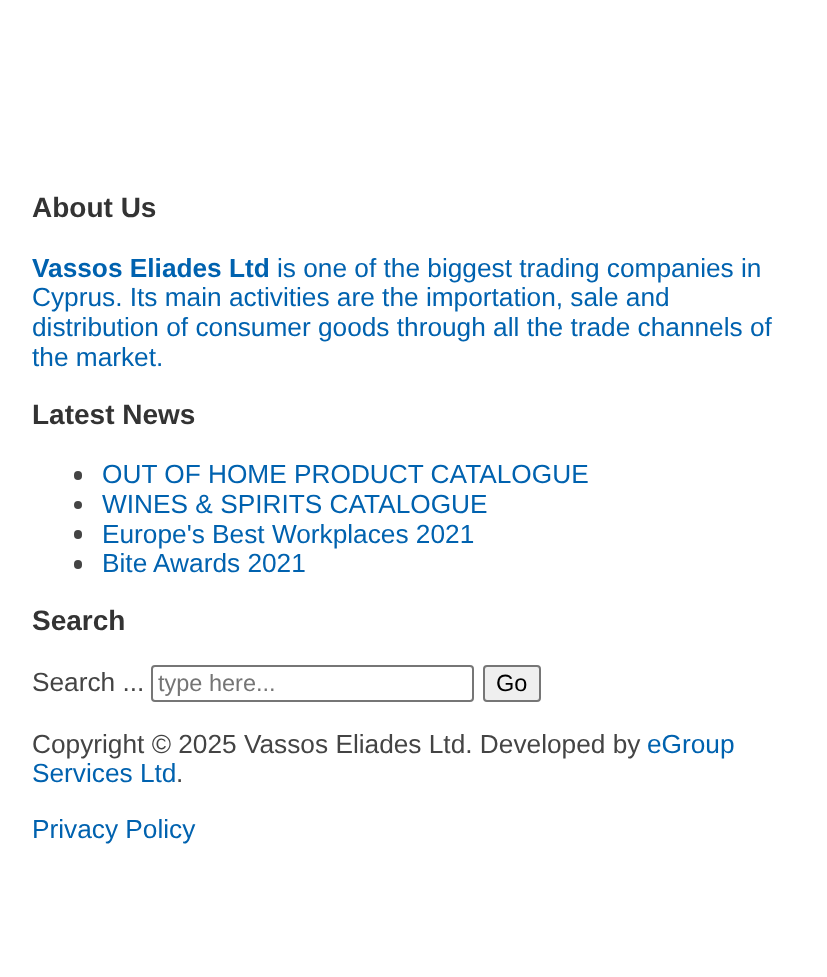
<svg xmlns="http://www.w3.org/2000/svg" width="827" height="977">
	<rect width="100%" height="100%" fill="#FFFFFF" />
	<text x="32" y="217" font-family="Arimo" font-size="28" font-weight="700" fill="#333333">About Us</text>
	<text x="32" y="277" font-family="Arimo" font-size="26.25" font-weight="700" fill="#0062AF">Vassos Eliades Ltd</text>
	<g font-family="Arimo" font-size="26.25" fill="#0062AF">
		<text x="277" y="277">is one of the biggest trading companies in</text>
		<text x="32" y="306">Cyprus. Its main activities are the importation, sale and</text>
		<text x="32" y="336">distribution of consumer goods through all the trade channels of</text>
		<text x="32" y="366">the market.</text>
	</g>
	<text x="32" y="424" font-family="Arimo" font-size="28" font-weight="700" fill="#333333">Latest News</text>
	<rect x="74" y="471" width="8" height="9" rx="4" fill="#444444" />
	<text x="102" y="483" font-family="Arimo" font-size="26.25" fill="#0062AF">OUT OF HOME PRODUCT CATALOGUE</text>
	<circle cx="78" cy="505" r="4" fill="#444444" />
	<text x="102" y="513" font-family="Arimo" font-size="26.25" fill="#0062AF">WINES &amp; SPIRITS CATALOGUE</text>
	<rect x="74" y="530" width="8" height="9" rx="4" fill="#444444" />
	<text x="102" y="543" font-family="Arimo" font-size="26.25" fill="#0062AF">Europe's Best Workplaces 2021</text>
	<rect x="74" y="560" width="8" height="9" rx="4" fill="#444444" />
	<text x="102" y="572" font-family="Arimo" font-size="26.25" fill="#0062AF">Bite Awards 2021</text>
	<text x="32" y="630" font-family="Arimo" font-size="28" font-weight="700" fill="#333333">Search</text>
	<text x="32" y="691" font-family="Arimo" font-size="26.25" fill="#444444">Search ...</text>
	<rect x="152" y="666" width="321" height="35" rx="3" fill="none" stroke="#767676" stroke-width="2" />
	<text x="158" y="691" font-family="Liberation Sans" font-size="23.5" fill="#757575">type here...</text>
	<rect x="484" y="666" width="56" height="35" rx="3" fill="#EFEFEF" stroke="#767676" stroke-width="2" />
	<text x="496" y="691" font-family="Liberation Sans" font-size="23.5" fill="#000000">Go</text>
	<text x="32" y="753" font-family="Arimo" font-size="26.25" fill="#444444">Copyright © 2025 Vassos Eliades Ltd. Developed by</text>
	<g font-family="Arimo" font-size="26.25" fill="#0062AF">
		<text x="647" y="753">eGroup</text>
		<text x="32" y="782">Services Ltd</text>
	</g>
	<text x="176" y="782" font-family="Arimo" font-size="26.25" fill="#444444">.</text>
	<text x="32" y="838" font-family="Arimo" font-size="26.25" fill="#0062AF">Privacy Policy</text>
</svg>
